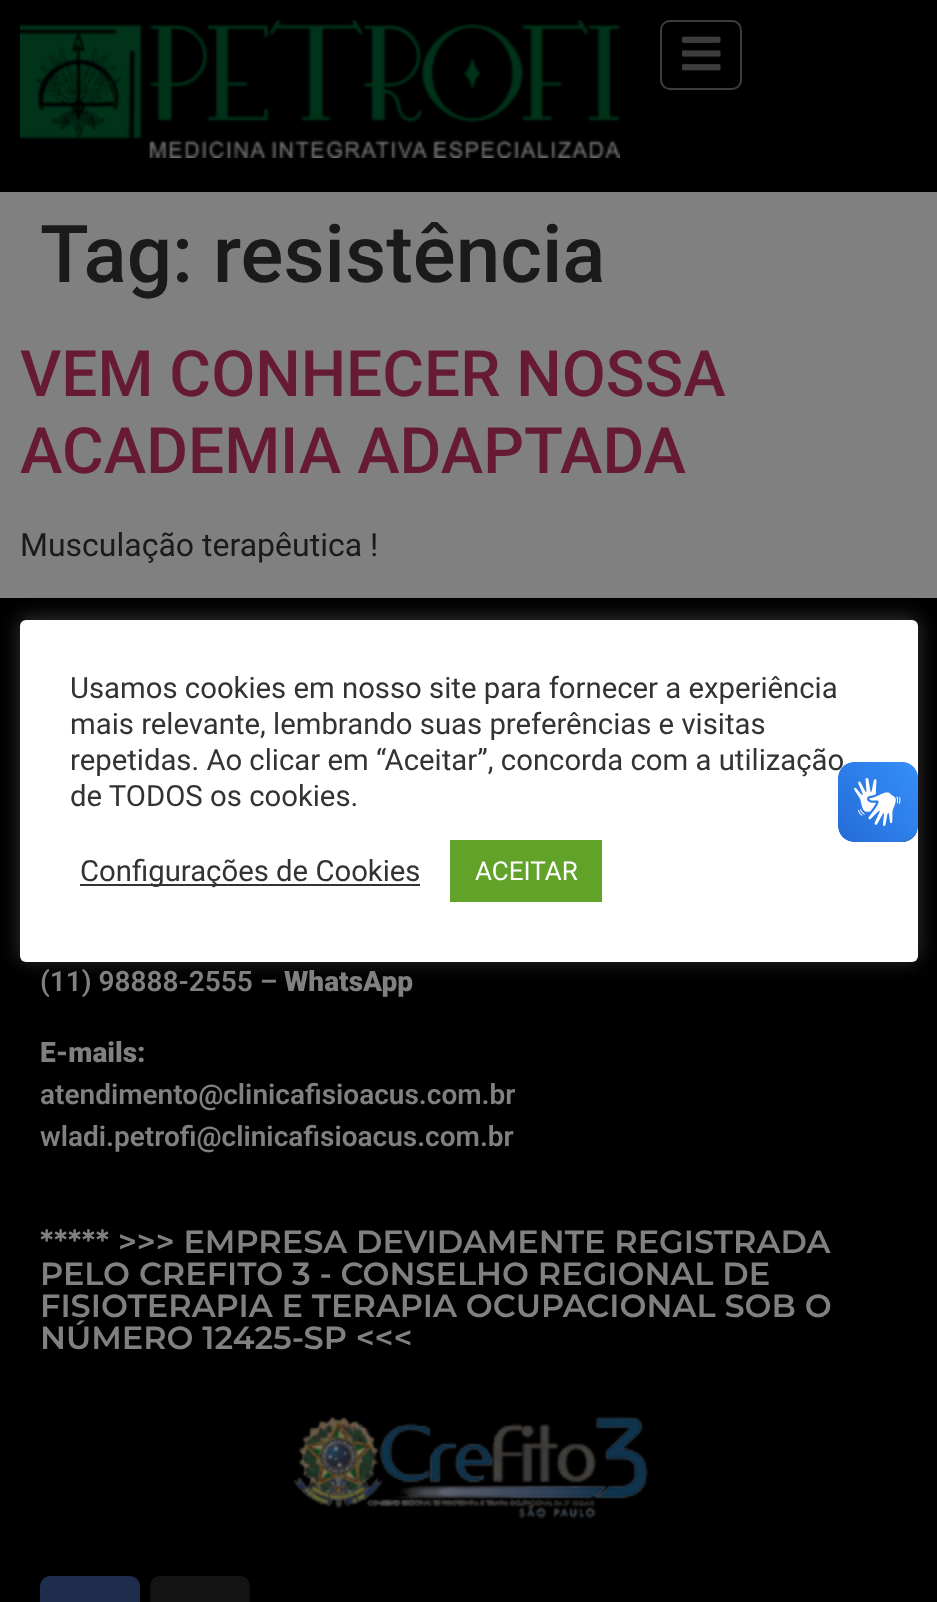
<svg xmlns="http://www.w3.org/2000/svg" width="937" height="1602">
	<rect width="100%" height="100%" fill="#808080" />
	<rect x="0" y="0" width="937" height="192" fill="#000000" />
	<image x="20" y="20" width="600" height="138" href="assets/img1.png" />
	<rect x="661" y="21" width="80" height="68" rx="9" fill="none" stroke="#3D3D3D" stroke-width="2" />
	<image x="682" y="36" width="39" height="35" href="assets/img2.png" />
	<text x="40" y="282" font-family="Roboto" font-size="80" font-weight="500" fill="#1A1A1A">Tag: resistência</text>
	<g font-family="Roboto" font-size="64" font-weight="500" fill="#661A33">
		<text x="20" y="396">VEM CONHECER NOSSA</text>
		<text x="20" y="473">ACADEMIA ADAPTADA</text>
	</g>
	<text x="20" y="556" font-family="Roboto" font-size="32" fill="#1A1A1A">Musculação terapêutica !</text>
	<rect x="0" y="598" width="937" height="1004" fill="#000000" />
	<text x="40" y="991" font-family="Roboto" font-size="28" font-weight="600" fill="#808080">(11) 98888-2555 –</text>
	<g font-family="Roboto" font-size="28" font-weight="900" fill="#808080">
		<text x="284" y="991">WhatsApp</text>
		<text x="40" y="1062">E-mails:</text>
	</g>
	<g font-family="Roboto" font-size="28" font-weight="600" fill="#808080">
		<text x="40" y="1104">atendimento@clinicafisioacus.com.br</text>
		<text x="40" y="1146">wladi.petrofi@clinicafisioacus.com.br</text>
	</g>
	<g font-family="Montserrat" font-size="32" font-weight="600" fill="#808080">
		<text x="40" y="1253">***** &gt;&gt;&gt; EMPRESA DEVIDAMENTE REGISTRADA</text>
		<text x="40" y="1285">PELO CREFITO 3 - CONSELHO REGIONAL DE</text>
		<text x="40" y="1317">FISIOTERAPIA E TERAPIA OCUPACIONAL SOB O</text>
		<text x="40" y="1349">NÚMERO 12425-SP &lt;&lt;&lt;</text>
	</g>
	<image x="293" y="1415" width="356" height="104" href="assets/img3.png" />
	<rect x="40" y="1576" width="100" height="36" rx="10" fill="#1E2D4C" />
	<rect x="150" y="1576" width="100" height="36" rx="10" fill="#131313" />
	<rect x="20" y="618" width="898" height="342" rx="6" fill="#ACABAB" fill-opacity="0.3" filter="blur(10px)" />
	<rect x="20" y="620" width="898" height="342" rx="6" fill="#FFFFFF" />
	<g font-family="Roboto" font-size="29.3" fill="#333333">
		<text x="70" y="698">Usamos cookies em nosso site para fornecer a experiência</text>
		<text x="70" y="734">mais relevante, lembrando suas preferências e visitas</text>
		<text x="70" y="770">repetidas. Ao clicar em “Aceitar”, concorda com a utilização</text>
		<text x="70" y="806">de TODOS os cookies.</text>
	</g>
	<rect x="80" y="884" width="340" height="2" fill="#333333" />
	<text x="80" y="881" font-family="Roboto" font-size="29.3" fill="#333333">Configurações de Cookies</text>
	<rect x="450" y="840" width="152" height="62" fill="#61A229" />
	<text x="475" y="880" font-family="Roboto" font-size="26" fill="#FFFFFF">ACEITAR</text>
	<image x="838" y="762" width="80" height="80" href="assets/img4.png" />
	<image x="838" y="762" width="80" height="80" href="assets/img5.png" />
</svg>
